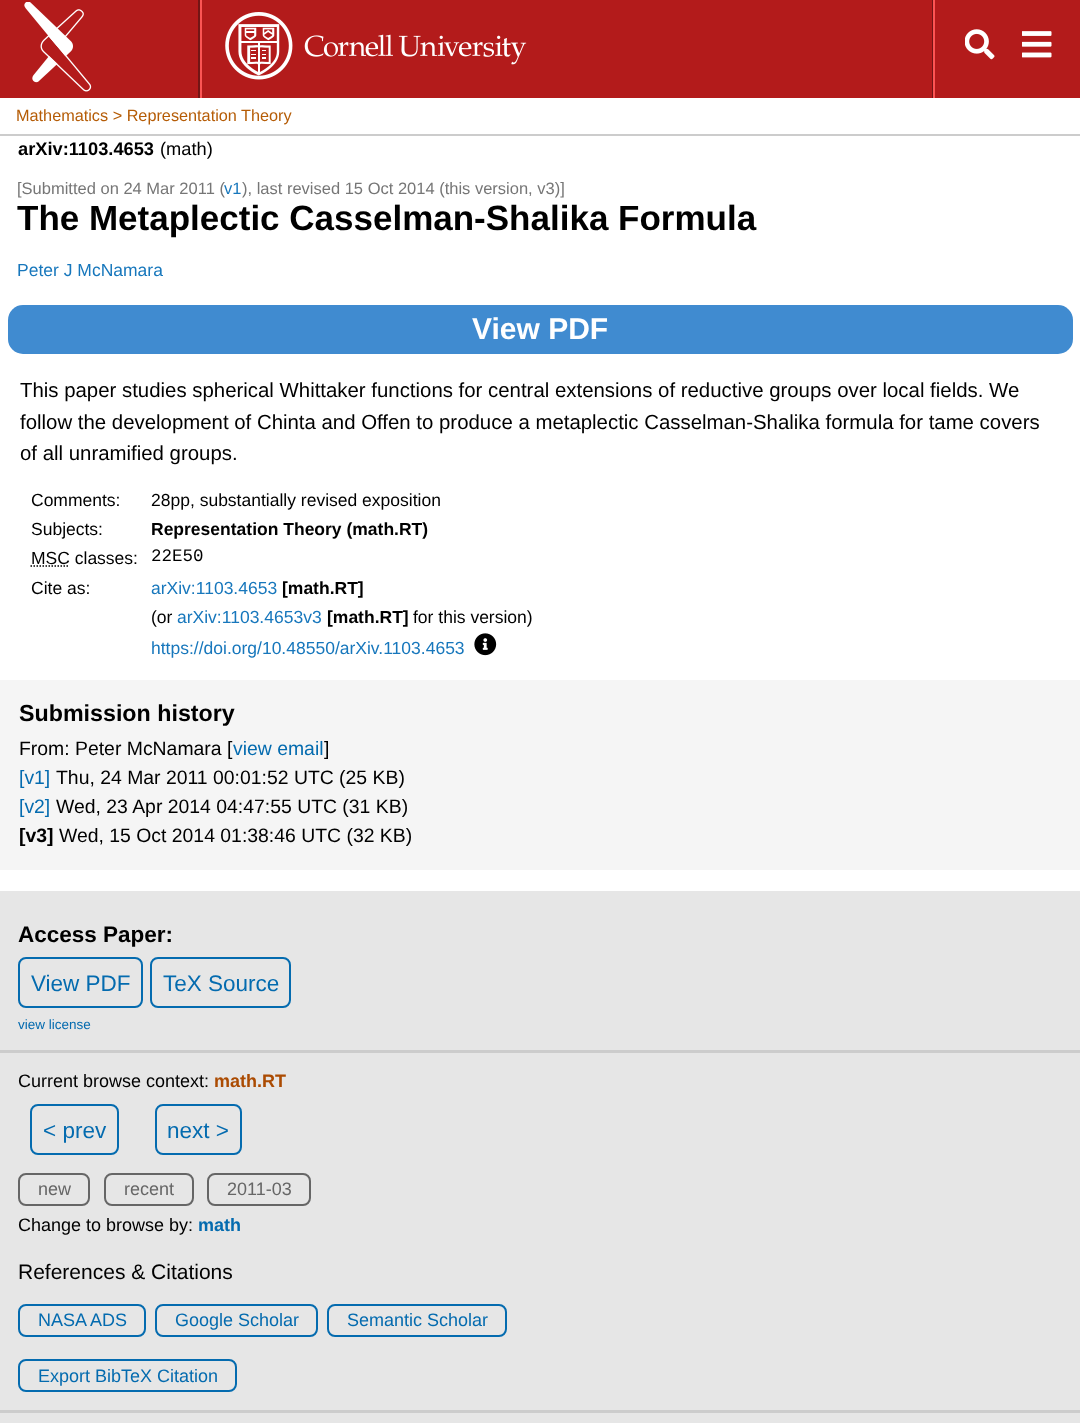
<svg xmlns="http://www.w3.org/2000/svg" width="1080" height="1423">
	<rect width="100%" height="100%" fill="#FFFFFF" />
	<rect x="0" y="0" width="1080" height="98" fill="#B31B1B" />
	<rect x="198" y="0" width="2" height="98" fill="#731515" />
	<image x="24" y="2" width="68" height="90" href="assets/img1.png" />
	<rect x="932" y="0" width="1" height="98" fill="#731515" />
	<rect x="200" y="0" width="2" height="98" fill="#FC5554" />
	<image x="225" y="12" width="302" height="68" href="assets/img2.png" />
	<rect x="933" y="0" width="2" height="98" fill="#FC5554" />
	<image x="965" y="29" width="30" height="31" href="assets/img3.png" />
	<image x="1022" y="31" width="30" height="27" href="assets/img4.png" />
	<rect x="0" y="134" width="1080" height="2" fill="#CCCCCC" />
	<text x="16" y="121" font-family="Liberation Sans" font-size="16.25" fill="#B55C06">Mathematics &gt; Representation Theory</text>
	<text x="18" y="155" font-family="Liberation Sans" font-size="18.25" font-weight="700" fill="#000000">arXiv:1103.4653</text>
	<text x="160" y="155" font-family="Liberation Sans" font-size="18.25" fill="#000000">(math)</text>
	<text x="17" y="194" font-family="Liberation Sans" font-size="16.5" fill="#767676">[Submitted on 24 Mar 2011 (</text>
	<text x="224" y="194" font-family="Liberation Sans" font-size="16.5" fill="#1777BC">v1</text>
	<text x="242" y="194" font-family="Liberation Sans" font-size="16.5" fill="#767676">), last revised 15 Oct 2014 (this version, v3)]</text>
	<text x="17" y="230" font-family="Liberation Sans" font-size="35" font-weight="700" fill="#000000">The Metaplectic Casselman-Shalika Formula</text>
	<text x="17" y="276" font-family="Liberation Sans" font-size="17.5" fill="#1777BC">Peter J McNamara</text>
	<rect x="8" y="305" width="1065" height="49" rx="15" fill="#408BD0" />
	<text x="472" y="339" font-family="Liberation Sans" font-size="30" font-weight="700" fill="#FFFFFF">View PDF</text>
	<g font-family="Liberation Sans" font-size="20.4" fill="#000000">
		<text x="20" y="397">This paper studies spherical Whittaker functions for central extensions of reductive groups over local fields. We</text>
		<text x="20" y="429">follow the development of Chinta and Offen to produce a metaplectic Casselman-Shalika formula for tame covers</text>
		<text x="20" y="460">of all unramified groups.</text>
	</g>
	<g font-family="Liberation Sans" font-size="17.5" fill="#000000">
		<text x="31" y="506">Comments:</text>
		<text x="151" y="506">28pp, substantially revised exposition</text>
		<text x="31" y="535">Subjects:</text>
	</g>
	<text x="151" y="535" font-family="Liberation Sans" font-size="17.5" font-weight="700" fill="#000000">Representation Theory (math.RT)</text>
	<text x="31" y="564" font-family="Liberation Sans" font-size="17.5" fill="#000000">MSC classes:</text>
	<path d="M30.5 566H69.5" fill="none" stroke="#000000" stroke-width="1.5" stroke-dasharray="1.5 1.5" />
	<text x="151" y="561" font-family="Liberation Mono" font-size="17.5" fill="#000000">22E50</text>
	<text x="31" y="594" font-family="Liberation Sans" font-size="17.5" fill="#000000">Cite as:</text>
	<text x="151" y="594" font-family="Liberation Sans" font-size="17.5" fill="#1777BC">arXiv:1103.4653</text>
	<text x="282" y="594" font-family="Liberation Sans" font-size="17.5" font-weight="700" fill="#000000">[math.RT]</text>
	<text x="151" y="623" font-family="Liberation Sans" font-size="17.5" fill="#000000">(or</text>
	<text x="177" y="623" font-family="Liberation Sans" font-size="17.5" fill="#1777BC">arXiv:1103.4653v3</text>
	<text x="327" y="623" font-family="Liberation Sans" font-size="17.5" font-weight="700" fill="#000000">[math.RT]</text>
	<text x="413" y="623" font-family="Liberation Sans" font-size="17.5" fill="#000000">for this version)</text>
	<text x="151" y="654" font-family="Liberation Sans" font-size="17.5" fill="#1777BC">https://doi.org/10.48550/arXiv.1103.4653</text>
	<image x="474" y="633" width="23" height="23" href="assets/img5.png" />
	<rect x="0" y="680" width="1080" height="190" fill="#F5F5F5" />
	<text x="19" y="721" font-family="Liberation Sans" font-size="23.25" font-weight="700" fill="#000000">Submission history</text>
	<text x="19" y="755" font-family="Liberation Sans" font-size="19.4" fill="#000000">From: Peter McNamara [</text>
	<text x="233" y="755" font-family="Liberation Sans" font-size="19.4" fill="#046BAF">view email</text>
	<text x="324" y="755" font-family="Liberation Sans" font-size="19.4" fill="#000000">]</text>
	<text x="19" y="784" font-family="Liberation Sans" font-size="19.4" fill="#046BAF">[v1]</text>
	<text x="56" y="784" font-family="Liberation Sans" font-size="19.4" fill="#000000">Thu, 24 Mar 2011 00:01:52 UTC (25 KB)</text>
	<text x="19" y="813" font-family="Liberation Sans" font-size="19.4" fill="#046BAF">[v2]</text>
	<text x="56" y="813" font-family="Liberation Sans" font-size="19.4" fill="#000000">Wed, 23 Apr 2014 04:47:55 UTC (31 KB)</text>
	<text x="19" y="842" font-family="Liberation Sans" font-size="19.4" font-weight="700" fill="#000000">[v3]</text>
	<text x="59" y="842" font-family="Liberation Sans" font-size="19.4" fill="#000000">Wed, 15 Oct 2014 01:38:46 UTC (32 KB)</text>
	<rect x="0" y="891" width="1080" height="532" fill="#E6E6E6" />
	<text x="18" y="942" font-family="Liberation Sans" font-size="22.5" font-weight="700" fill="#000000">Access Paper:</text>
	<rect x="19" y="958" width="123" height="49" rx="7" fill="none" stroke="#046BAF" stroke-width="2" />
	<text x="31" y="991" font-family="Liberation Sans" font-size="22.5" fill="#046BAF">View PDF</text>
	<rect x="151" y="958" width="139" height="49" rx="7" fill="none" stroke="#046BAF" stroke-width="2" />
	<text x="163" y="991" font-family="Liberation Sans" font-size="22.5" fill="#046BAF">TeX Source</text>
	<text x="18" y="1029" font-family="Liberation Sans" font-size="13.5" fill="#046BAF">view license</text>
	<rect x="0" y="1050" width="1080" height="3" fill="#CCCCCC" />
	<text x="18" y="1087" font-family="Liberation Sans" font-size="18" fill="#000000">Current browse context:</text>
	<text x="214" y="1087" font-family="Liberation Sans" font-size="18" font-weight="700" fill="#AB4B02">math.RT</text>
	<rect x="31" y="1105" width="87" height="49" rx="7" fill="none" stroke="#046BAF" stroke-width="2" />
	<text x="43" y="1138" font-family="Liberation Sans" font-size="22.5" fill="#046BAF">&lt; prev</text>
	<rect x="156" y="1105" width="85" height="49" rx="7" fill="none" stroke="#046BAF" stroke-width="2" />
	<text x="167" y="1138" font-family="Liberation Sans" font-size="22.5" fill="#046BAF">next &gt;</text>
	<rect x="19" y="1174" width="70" height="31" rx="7" fill="none" stroke="#666666" stroke-width="2" />
	<text x="38" y="1195" font-family="Liberation Sans" font-size="18" fill="#666666">new</text>
	<rect x="105" y="1174" width="88" height="31" rx="7" fill="none" stroke="#666666" stroke-width="2" />
	<text x="124" y="1195" font-family="Liberation Sans" font-size="18" fill="#666666">recent</text>
	<rect x="208" y="1174" width="102" height="31" rx="7" fill="none" stroke="#666666" stroke-width="2" />
	<text x="227" y="1195" font-family="Liberation Sans" font-size="18" fill="#666666">2011-03</text>
	<text x="18" y="1231" font-family="Liberation Sans" font-size="18" fill="#000000">Change to browse by:</text>
	<text x="198" y="1231" font-family="Liberation Sans" font-size="18" font-weight="700" fill="#046BAF">math</text>
	<text x="18" y="1279" font-family="Liberation Sans" font-size="21" fill="#000000">References &amp; Citations</text>
	<rect x="19" y="1305" width="126" height="31" rx="7" fill="none" stroke="#046BAF" stroke-width="2" />
	<text x="38" y="1326" font-family="Liberation Sans" font-size="18" fill="#046BAF">NASA ADS</text>
	<rect x="156" y="1305" width="161" height="31" rx="7" fill="none" stroke="#046BAF" stroke-width="2" />
	<text x="175" y="1326" font-family="Liberation Sans" font-size="18" fill="#046BAF">Google Scholar</text>
	<rect x="328" y="1305" width="178" height="31" rx="7" fill="none" stroke="#046BAF" stroke-width="2" />
	<text x="347" y="1326" font-family="Liberation Sans" font-size="18" fill="#046BAF">Semantic Scholar</text>
	<rect x="19" y="1360" width="217" height="31" rx="7" fill="none" stroke="#046BAF" stroke-width="2" />
	<text x="38" y="1382" font-family="Liberation Sans" font-size="18" fill="#046BAF">Export BibTeX Citation</text>
	<rect x="0" y="1410" width="1080" height="3" fill="#CCCCCC" />
</svg>
